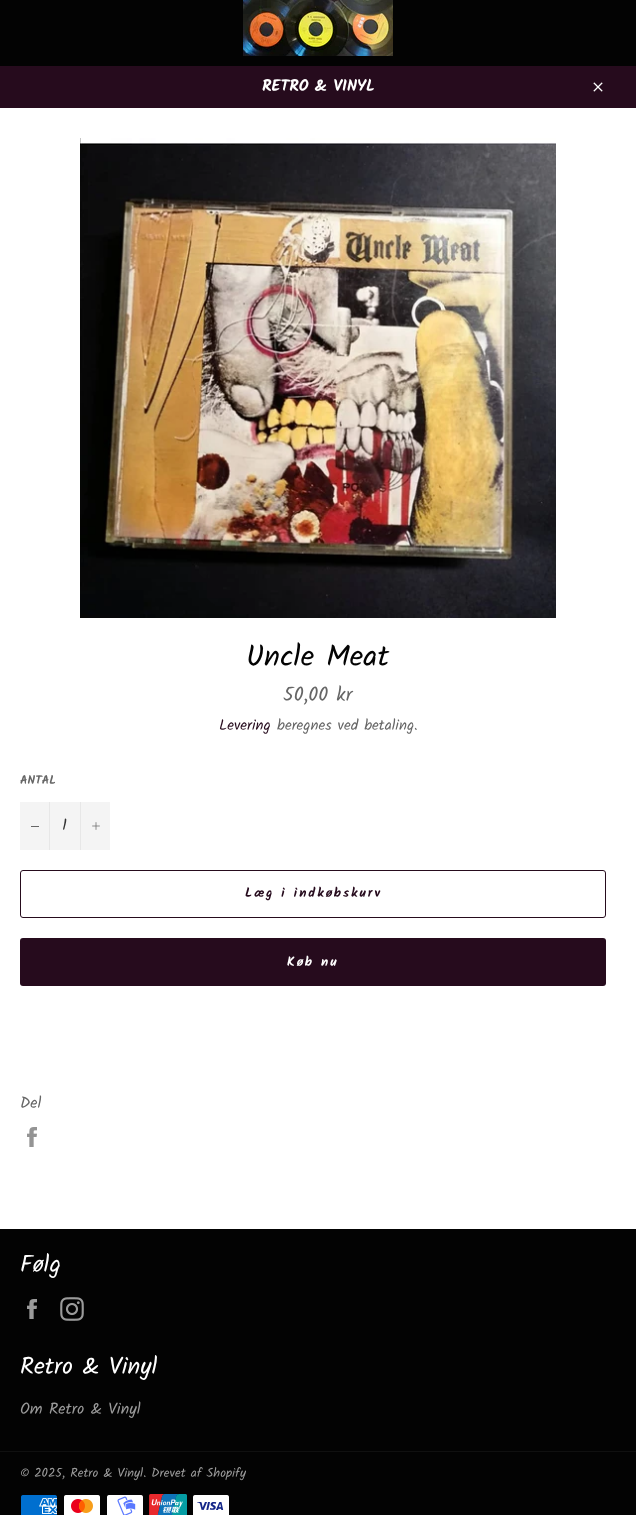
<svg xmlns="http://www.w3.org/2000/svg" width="636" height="1515">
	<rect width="100%" height="100%" fill="#FFFFFF" />
	<rect x="0" y="0" width="636" height="66" fill="#030303" />
	<image x="243" y="0" width="150" height="56" href="assets/img1.png" />
	<rect x="0" y="66" width="636" height="42" fill="#260B1D" />
	<text x="262" y="91" font-family="Kalam" font-size="16" font-weight="700" fill="#FFFFFF">RETRO &amp; VINYL</text>
	<image x="593" y="82" width="10" height="10" href="assets/img2.png" />
	<image x="80" y="138" width="476" height="480" href="assets/img3.png" />
	<text x="246" y="666" font-family="Kalam" font-size="30" fill="#030303">Uncle Meat</text>
	<text x="283" y="701" font-family="Kalam" font-size="20" fill="#666666">50,00 kr</text>
	<text x="219" y="730" font-family="Kalam" font-size="15" fill="#260B1D">Levering</text>
	<text x="277" y="730" font-family="Kalam" font-size="15" fill="#666666">beregnes ved betaling.</text>
	<text x="20" y="784" font-family="Kalam" font-size="12" font-weight="700" fill="#666666">ANTAL</text>
	<rect x="20" y="802" width="90" height="48" fill="#F4F4F4" />
	<rect x="49" y="802" width="1" height="48" fill="#E7E7E7" />
	<rect x="31" y="826" width="8" height="1" fill="#666666" />
	<text x="62" y="830" font-family="Kalam" font-size="16" fill="#333333">1</text>
	<rect x="80" y="802" width="1" height="48" fill="#E7E7E7" />
	<image x="92" y="822" width="8" height="8" href="assets/img4.png" />
	<rect x="20.5" y="870.5" width="585" height="47" rx="2.5" fill="none" stroke="#260B1D" />
	<text x="245" y="897" font-family="Kalam" font-size="13" font-weight="700" letter-spacing="2" fill="#260B1D">Læg i indkøbskurv</text>
	<rect x="20" y="938" width="586" height="48" rx="3" fill="#260B1D" />
	<text x="287" y="966" font-family="Kalam" font-size="13" font-weight="700" letter-spacing="2" fill="#FFFFFF">Køb nu</text>
	<text x="20" y="1108" font-family="Kalam" font-size="16" fill="#666666">Del</text>
	<image x="27" y="1127" width="10" height="20" href="assets/img5.png" />
	<rect x="0" y="1229" width="636" height="286" fill="#030303" />
	<text x="20" y="1272" font-family="Kalam" font-size="24" fill="#FFFFFF">Følg</text>
	<image x="27" y="1299" width="10" height="20" href="assets/img6.png" />
	<image x="60" y="1297" width="24" height="24" href="assets/img7.png" />
	<text x="20" y="1374" font-family="Kalam" font-size="24" fill="#FFFFFF">Retro &amp; Vinyl</text>
	<text x="20" y="1414" font-family="Kalam" font-size="16" fill="#9A9A9A">Om Retro &amp; Vinyl</text>
	<rect x="0" y="1451" width="636" height="1" fill="#101010" />
	<text x="20" y="1477" font-family="Kalam" font-size="12.75" fill="#9A9A9A">© 2025, Retro &amp; Vinyl. Drevet af Shopify</text>
	<image x="21" y="1495" width="36" height="20" href="assets/img8.png" />
	<image x="64" y="1495" width="36" height="20" href="assets/img9.png" />
	<image x="107" y="1495" width="36" height="20" href="assets/img10.png" />
	<image x="149" y="1494" width="38" height="21" href="assets/img11.png" />
	<image x="193" y="1495" width="36" height="20" href="assets/img12.png" />
</svg>
